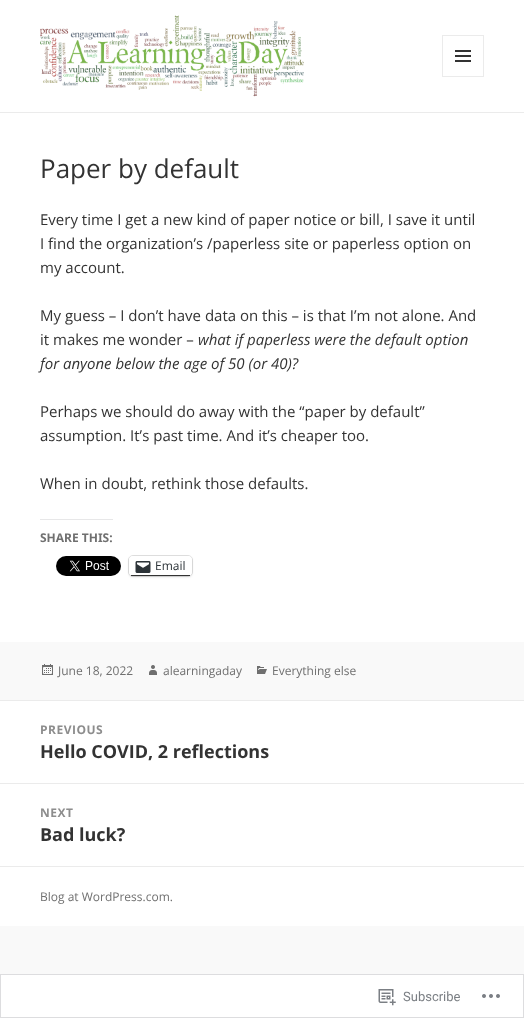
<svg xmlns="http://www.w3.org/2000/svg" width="524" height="1018">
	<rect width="100%" height="100%" fill="#F9F9F9" />
	<rect x="0" y="0" width="524" height="112" fill="#FFFFFF" />
	<rect x="0" y="112" width="524" height="1" fill="#EBEBEB" />
	<image x="40" y="15" width="264" height="82" href="assets/img1.png" />
	<rect x="442.5" y="35.5" width="41" height="41" fill="none" stroke="#EBEBEB" />
	<image x="455" y="50" width="16" height="12" href="assets/img2.png" />
	<rect x="0" y="113" width="524" height="529" fill="#FFFFFF" />
	<text x="40" y="178" font-family="Open Sans" font-size="26" fill="#333333">Paper by default</text>
	<g font-family="Open Sans" font-size="15" fill="#333333">
		<text x="40" y="225">Every time I get a new kind of paper notice or bill, I save it until</text>
		<text x="40" y="249">I find the organization’s /paperless site or paperless option on</text>
		<text x="40" y="273">my account.</text>
		<text x="40" y="321">My guess – I don’t have data on this – is that I’m not alone. And</text>
		<text x="40" y="345">it makes me wonder –</text>
	</g>
	<g font-family="Open Sans" font-size="15" font-style="italic" fill="#333333">
		<text x="198" y="345">what if paperless were the default option</text>
		<text x="40" y="369">for anyone below the age of 50 (or 40)?</text>
	</g>
	<g font-family="Open Sans" font-size="15" fill="#333333">
		<text x="40" y="417">Perhaps we should do away with the “paper by default”</text>
		<text x="40" y="441">assumption. It’s past time. And it’s cheaper too.</text>
		<text x="40" y="489">When in doubt, rethink those defaults.</text>
	</g>
	<rect x="40" y="519" width="73" height="1" fill="#E7E7E8" />
	<text x="40" y="542" font-family="Noto Sans" font-size="12" font-weight="700" fill="#707070">SHARE THIS:</text>
	<image x="56" y="556" width="65" height="20" href="assets/img3.png" />
	<rect x="128.5" y="555.5" width="64" height="21" rx="4.5" fill="none" stroke="#E0E0E0" />
	<rect x="129" y="557" width="63" height="20" rx="4" fill="#000000" fill-opacity="0.12" filter="blur(1px)" />
	<rect x="129" y="556" width="63" height="20" rx="4" fill="#FFFFFF" />
	<rect x="131" y="575" width="59" height="1" fill="#333333" />
	<image x="135" y="561" width="16" height="12" href="assets/img4.png" />
	<text x="155" y="570" font-family="Open Sans" font-size="12" fill="#2C3338">Email</text>
	<image x="42" y="664" width="11" height="11" href="assets/img5.png" />
	<text x="58" y="675" font-family="Open Sans" font-size="12" fill="#707070">June 18, 2022</text>
	<image x="149" y="665" width="8" height="10" href="assets/img6.png" />
	<text x="163" y="675" font-family="Open Sans" font-size="12" fill="#707070">alearningaday</text>
	<image x="257" y="666" width="10" height="8" href="assets/img7.png" />
	<text x="272" y="675" font-family="Open Sans" font-size="12" fill="#707070">Everything else</text>
	<rect x="0" y="701" width="524" height="165" fill="#FFFFFF" />
	<rect x="0" y="700" width="524" height="1" fill="#EBEBEB" />
	<text x="40" y="734" font-family="Open Sans" font-size="12" font-weight="700" letter-spacing="0.5" fill="#8D8D8D">PREVIOUS</text>
	<text x="40" y="758" font-family="Open Sans" font-size="18" font-weight="700" fill="#333333">Hello COVID, 2 reflections</text>
	<rect x="0" y="783" width="524" height="1" fill="#EBEBEB" />
	<text x="40" y="817" font-family="Open Sans" font-size="12" font-weight="700" letter-spacing="0.5" fill="#8D8D8D">NEXT</text>
	<text x="40" y="841" font-family="Open Sans" font-size="18" font-weight="700" fill="#333333">Bad luck?</text>
	<rect x="0" y="867" width="524" height="59" fill="#FFFFFF" />
	<rect x="0" y="866" width="524" height="1" fill="#EBEBEB" />
	<text x="40" y="901" font-family="Open Sans" font-size="12" fill="#707070">Blog at WordPress.com.</text>
	<rect x="0.5" y="974.5" width="523" height="43" fill="#FFFFFF" stroke="#DDDDDF" />
	<image x="378" y="989" width="18" height="17" href="assets/img8.png" />
	<text x="403" y="1001" font-family="Roboto" font-size="13" fill="#7B7F84">Subscribe</text>
	<image x="482" y="994" width="18" height="4" href="assets/img9.png" />
</svg>
